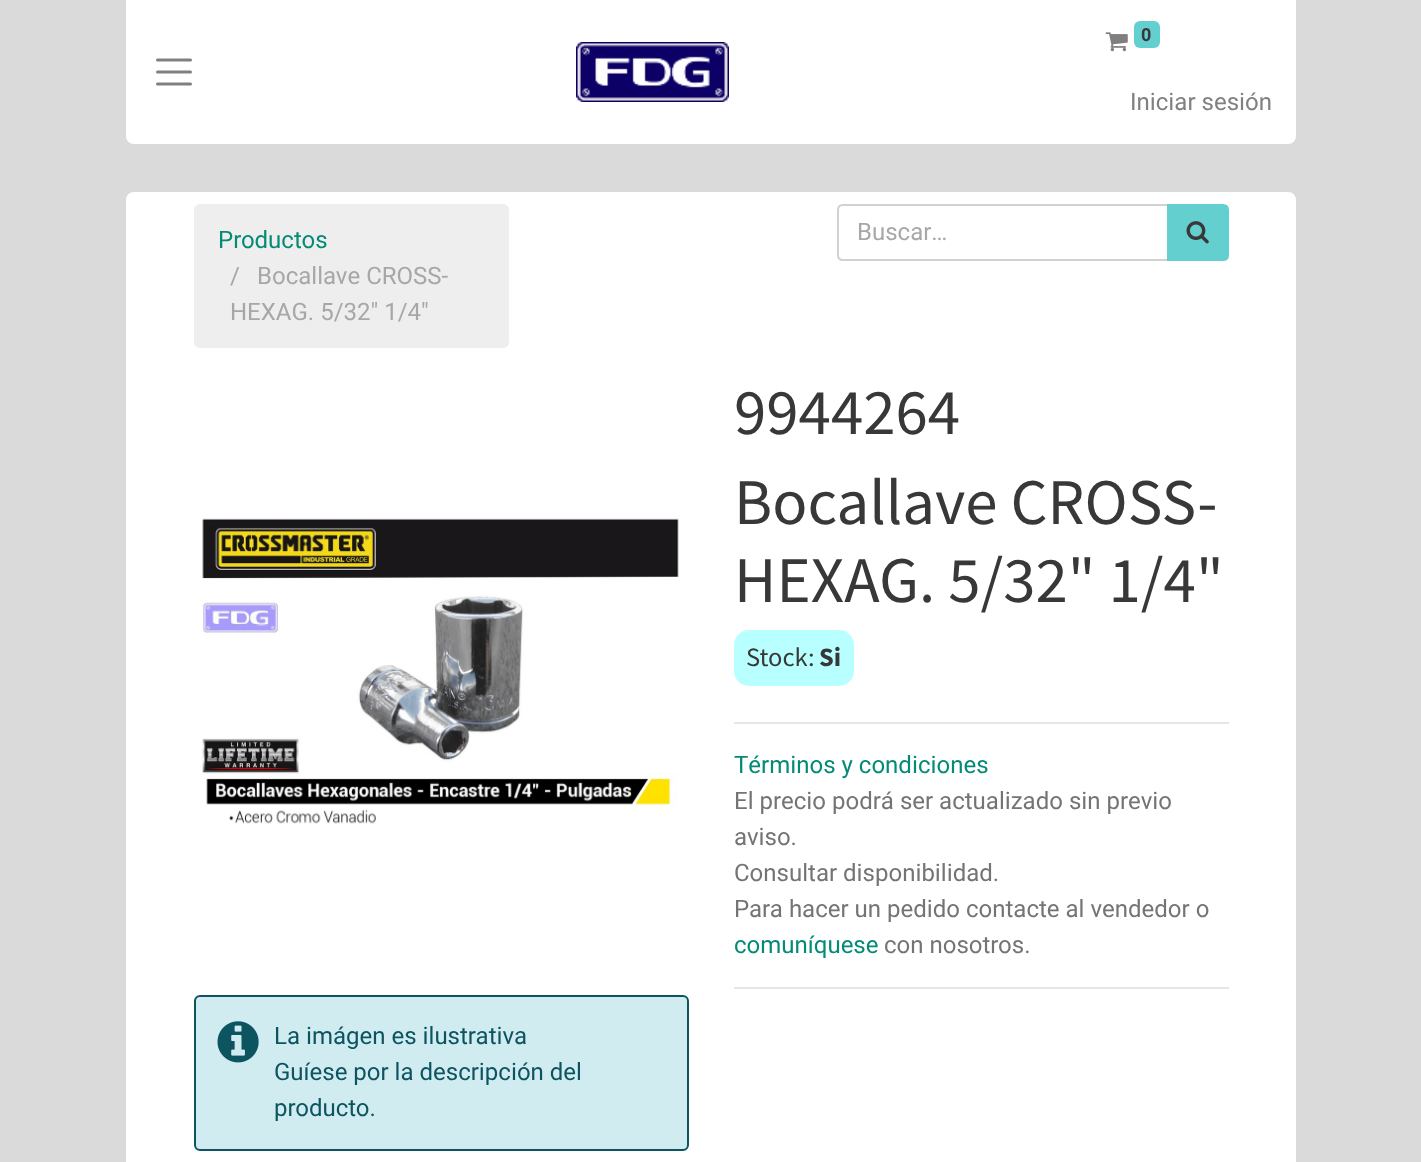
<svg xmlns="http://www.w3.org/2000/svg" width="1421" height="1162">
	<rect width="100%" height="100%" fill="#DADADA" />
	<path d="M126 0H1296V136C1296 140.5 1292.5 144 1288 144H134C129.5 144 126 140.5 126 136Z" fill="#FFFFFF" />
	<path d="M157.5 60H190.5M157.5 72H190.5M157.5 84H190.5" fill="none" stroke="#808080" stroke-width="3" stroke-linecap="round" />
	<image x="576" y="42" width="153" height="60" href="assets/img1.png" />
	<image x="1105" y="32" width="23" height="20" href="assets/img2.png" />
	<rect x="1134" y="21" width="26" height="27" rx="6" fill="#63CFCF" />
	<text x="1141" y="41" font-family="Heebo" font-size="18" font-weight="700" fill="#383838">0</text>
	<text x="1130" y="110" font-family="Heebo" font-size="24" fill="#808080">Iniciar sesión</text>
	<path d="M134 192H1288C1292.5 192 1296 195.5 1296 200V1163H126V200C126 195.5 129.5 192 134 192Z" fill="#FFFFFF" />
	<rect x="194" y="204" width="315" height="144" rx="6" fill="#EEEEEE" />
	<text x="218" y="248" font-family="Heebo" font-size="24" fill="#048B76">Productos</text>
	<g font-family="Heebo" font-size="24" fill="#A7A7A7">
		<text x="230" y="284">/</text>
		<text x="257" y="284">Bocallave CROSS-</text>
		<text x="230" y="320">HEXAG. 5/32" 1/4"</text>
	</g>
	<path d="M843 205H1168V260H843C840 260 838 258 838 255V210C838 207 840 205 843 205Z" fill="none" stroke="#D1D1D1" stroke-width="2" />
	<text x="857" y="240" font-family="Heebo" font-size="24" fill="#A7A7A7">Buscar…</text>
	<path d="M1168 205H1223C1226 205 1228 207 1228 210V255C1228 258 1226 260 1223 260H1168Z" fill="#63CFCF" stroke="#63CFCF" stroke-width="2" />
	<image x="1186" y="221" width="23" height="23" href="assets/img3.png" />
	<g font-family="Source Sans Pro" font-size="65" fill="#383838">
		<text x="734" y="434">9944264</text>
		<text x="734" y="524">Bocallave CROSS-</text>
		<text x="734" y="602">HEXAG. 5/32" 1/4"</text>
	</g>
	<rect x="734" y="630" width="120" height="56" rx="15" fill="#B8FFFF" />
	<text x="746" y="666" font-family="Source Sans Pro" font-size="26.5" fill="#383838">Stock:</text>
	<text x="819" y="666" font-family="Source Sans Pro" font-size="26.5" font-weight="700" fill="#383838">Si</text>
	<rect x="734" y="722" width="495" height="2" fill="#E6E6E6" />
	<text x="734" y="773" font-family="Heebo" font-size="24" fill="#048B76">Términos y condiciones</text>
	<g font-family="Heebo" font-size="24" fill="#747474">
		<text x="734" y="809">El precio podrá ser actualizado sin previo</text>
		<text x="734" y="845">aviso.</text>
		<text x="734" y="881">Consultar disponibilidad.</text>
		<text x="734" y="917">Para hacer un pedido contacte al vendedor o</text>
	</g>
	<text x="734" y="953" font-family="Heebo" font-size="24" fill="#048B76">comuníquese</text>
	<text x="884" y="953" font-family="Heebo" font-size="24" fill="#747474">con nosotros.</text>
	<rect x="734" y="987" width="495" height="2" fill="#E6E6E6" />
	<image x="202" y="518" width="477" height="306" href="assets/img4.png" />
	<rect x="195" y="996" width="493" height="154" rx="5" fill="#D1ECF1" stroke="#0C5460" stroke-width="2" />
	<image x="217" y="1021" width="42" height="42" href="assets/img5.png" />
	<g font-family="Heebo" font-size="24" fill="#0C5460">
		<text x="274" y="1044">La imágen es ilustrativa</text>
		<text x="274" y="1080">Guíese por la descripción del</text>
		<text x="274" y="1116">producto.</text>
	</g>
</svg>
